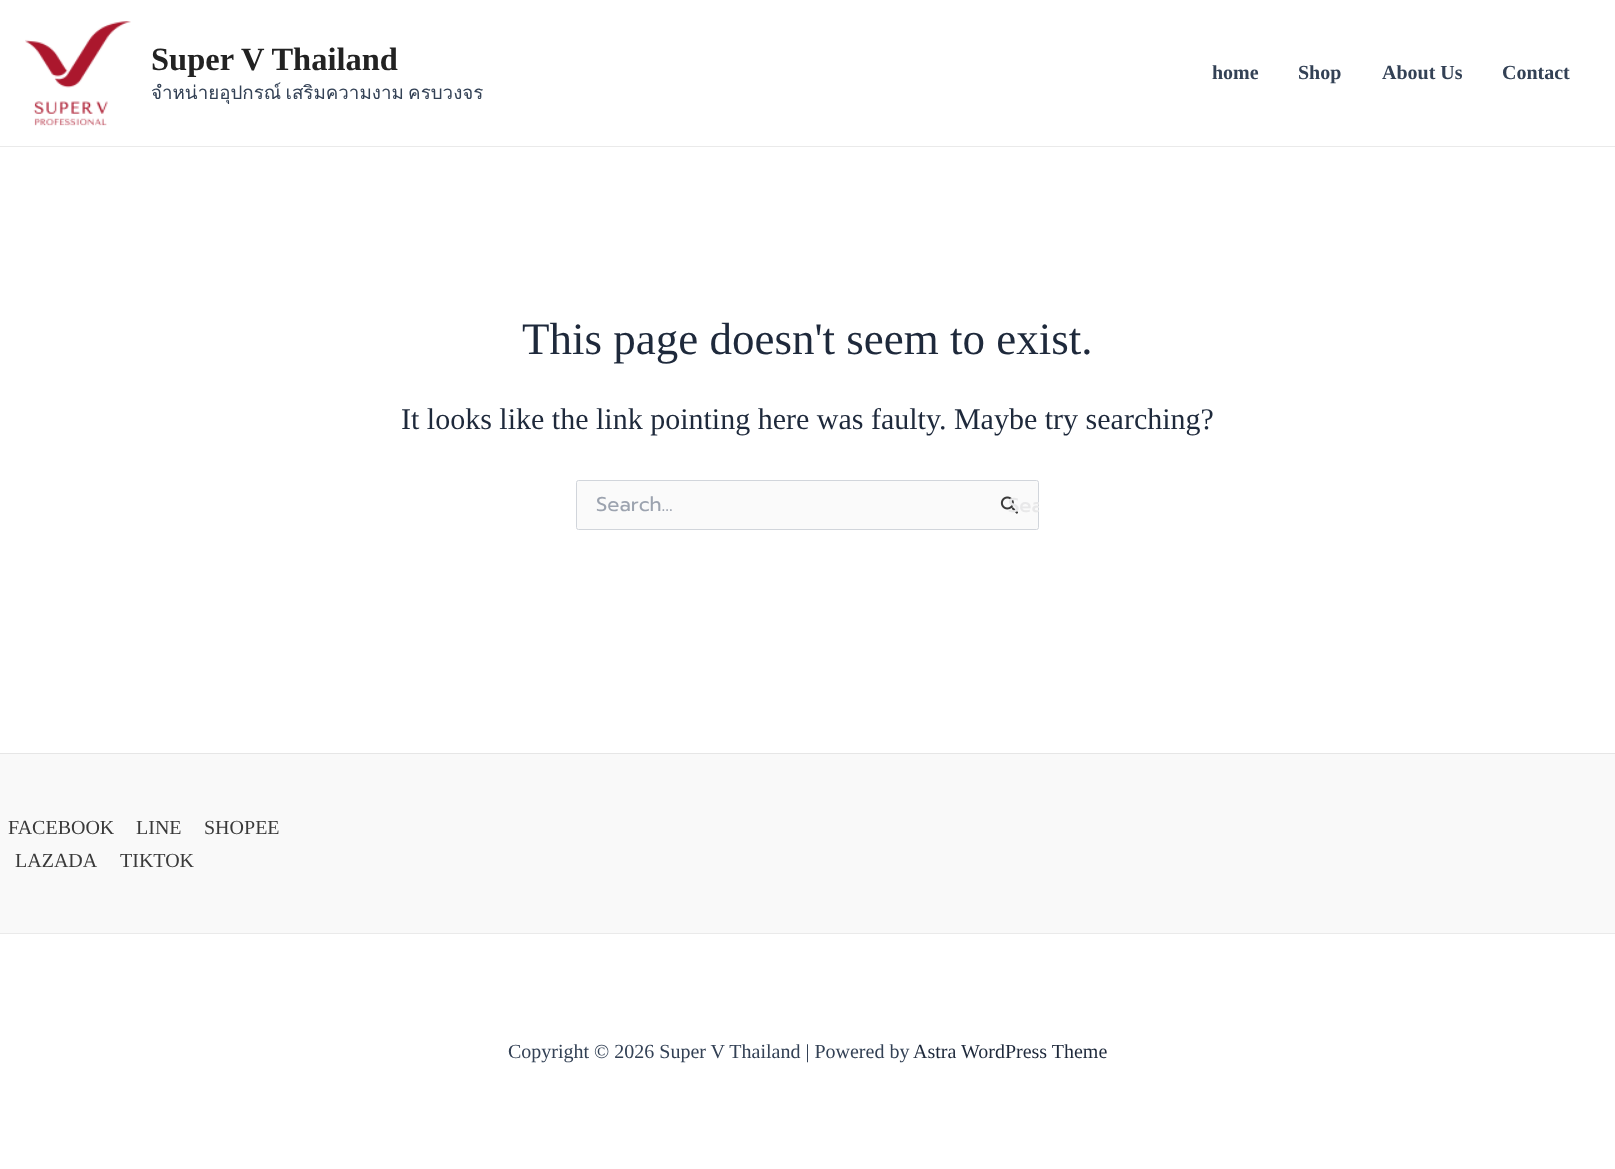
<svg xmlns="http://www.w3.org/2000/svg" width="1615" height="1169">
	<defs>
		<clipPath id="clip1"><rect x="983" y="480" width="56" height="53" rx="2.5" /></clipPath>
	</defs>
	<rect width="100%" height="100%" fill="#FFFFFF" />
	<rect x="0" y="146" width="1615" height="1" fill="#EAEAEA" />
	<image x="25" y="21" width="106" height="105" href="assets/img1.png" />
	<text x="151" y="70" font-family="Liberation Serif" font-size="32.5" font-weight="700" fill="#222222">Super V Thailand</text>
	<text x="151" y="99" word-spacing="-2" font-family="Loma" font-size="18.75" fill="#334155">จำหน่ายอุปกรณ์ เสริมความงาม ครบวงจร</text>
	<g font-family="Liberation Serif" font-size="20" font-weight="700" fill="#334155">
		<text x="1212" y="79">home</text>
		<text x="1298" y="79">Shop</text>
		<text x="1382" y="79">About Us</text>
		<text x="1502" y="79">Contact</text>
	</g>
	<text x="522" y="354" font-family="Liberation Serif" font-size="45" fill="#1E293B">This page doesn't seem to exist.</text>
	<text x="401" y="429" font-family="Liberation Serif" font-size="30" fill="#1E293B">It looks like the link pointing here was faulty. Maybe try searching?</text>
	<rect x="576.5" y="480.5" width="462" height="49" rx="2" fill="#FAFAFA" stroke="#D1D5DB" />
	<text x="596" y="511" font-family="Prompt" font-size="20" fill="#9CA3AF">Search...</text>
	<image x="1000" y="496" width="18" height="18" href="assets/img2.png" />
	<g clip-path="url(#clip1)">
		<text x="1008" y="512" font-family="Prompt" font-size="20" font-weight="500" fill="#E8E8E9">Sea</text>
	</g>
	<rect x="0" y="754" width="1615" height="179" fill="#F9F9F9" />
	<rect x="0" y="753" width="1615" height="1" fill="#E6E6E6" />
	<g font-family="Liberation Serif" font-size="20" fill="#3A3A3A">
		<text x="8" y="834">FACEBOOK</text>
		<text x="136" y="834">LINE</text>
		<text x="204" y="834">SHOPEE</text>
		<text x="15" y="867">LAZADA</text>
		<text x="120" y="867">TIKTOK</text>
	</g>
	<rect x="0" y="933" width="1615" height="1" fill="#EAEAEA" />
	<text x="508" y="1058" font-family="Liberation Serif" font-size="20" fill="#334155">Copyright © 2026 Super V Thailand | Powered by</text>
	<text x="913" y="1058" font-family="Liberation Serif" font-size="20" fill="#1E293B">Astra WordPress Theme</text>
</svg>
